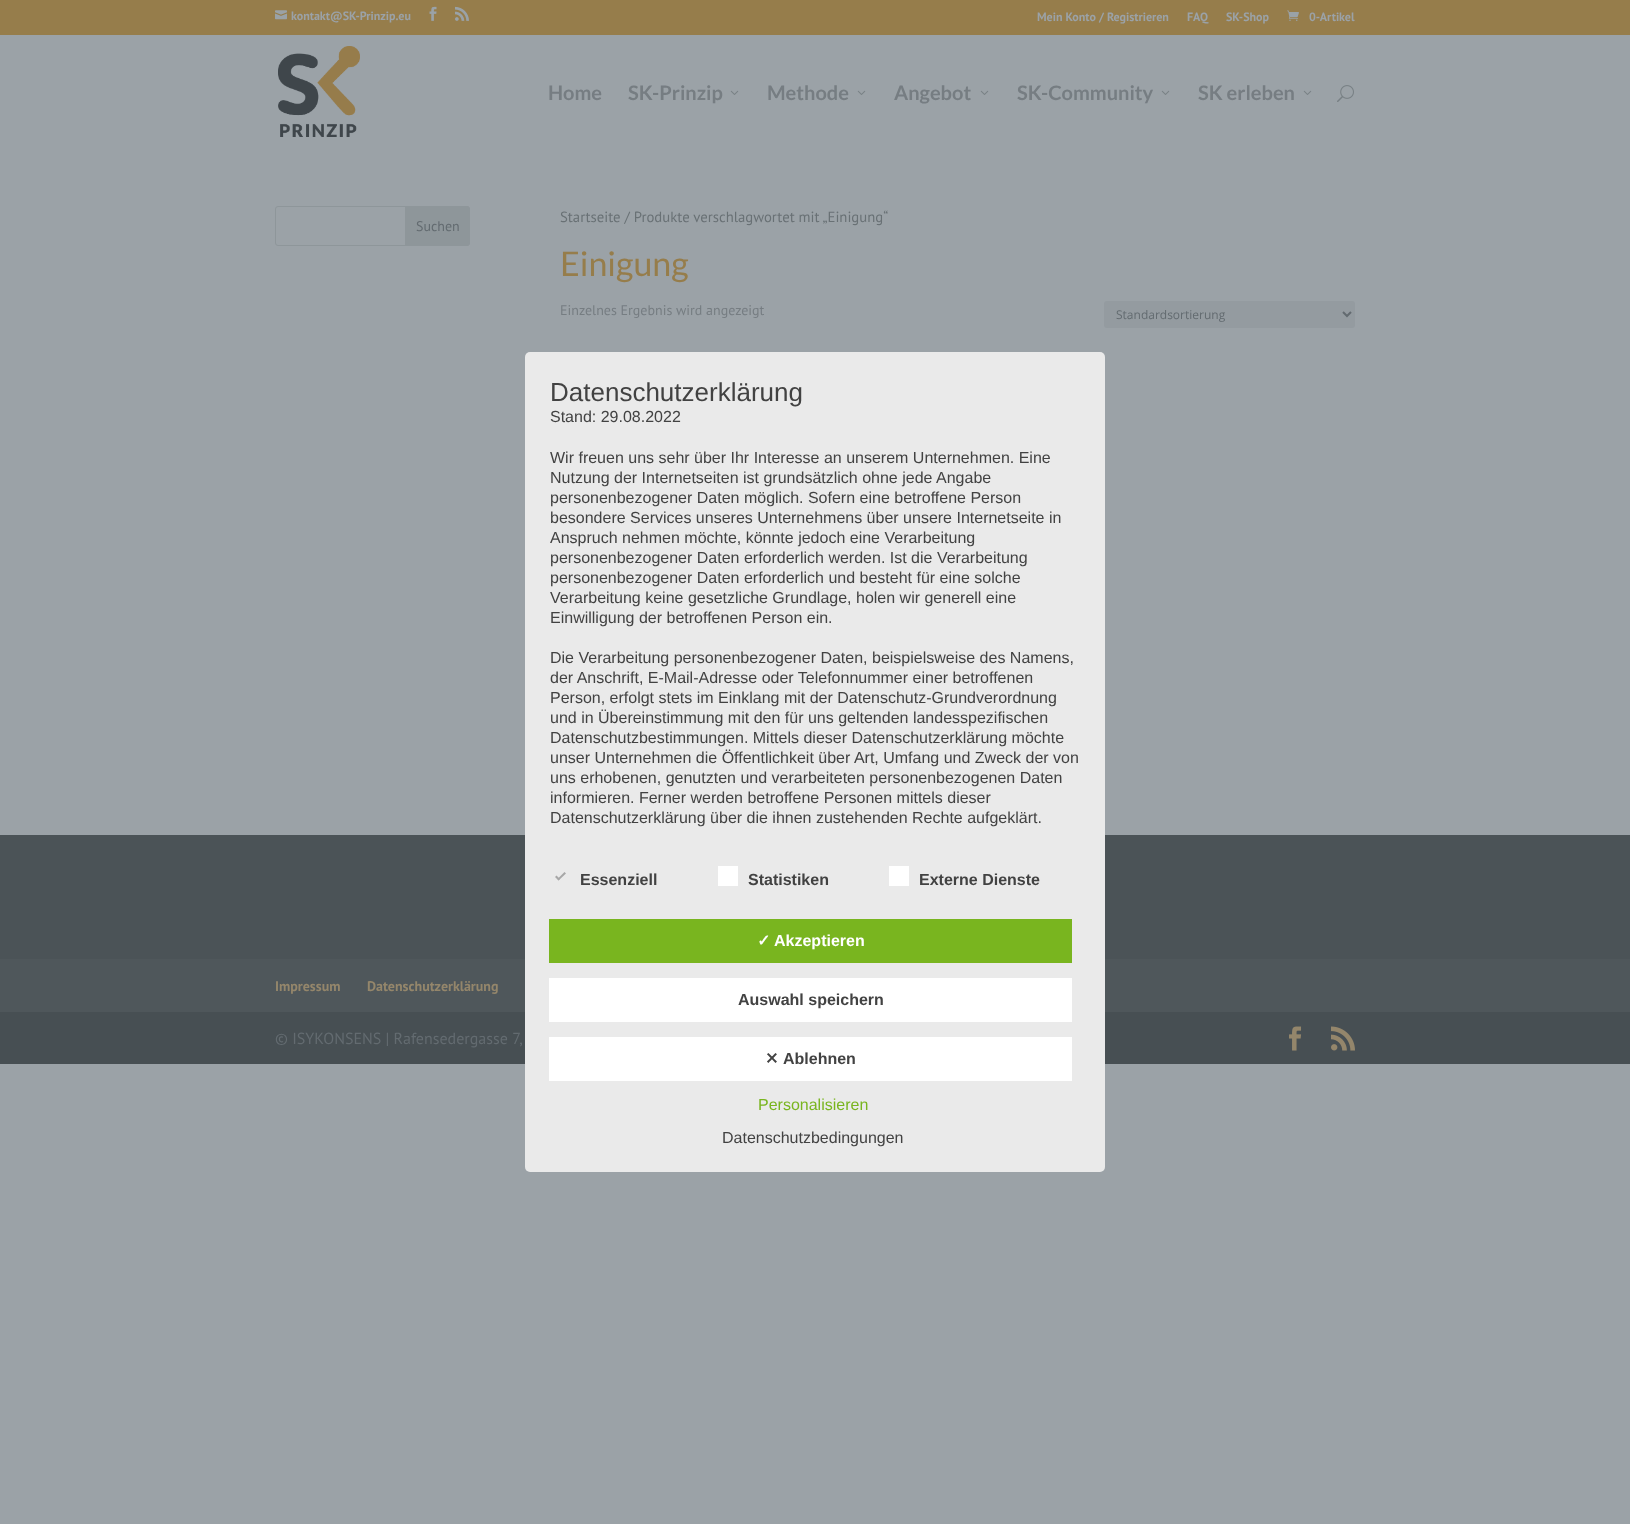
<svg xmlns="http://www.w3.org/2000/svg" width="1630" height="1524">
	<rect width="100%" height="100%" fill="#9BA2A7" />
	<rect x="0" y="0" width="1630" height="35" fill="#967D4B" />
	<image x="275" y="10" width="12" height="10" href="assets/img1.png" />
	<text x="291" y="20" font-family="PT Sans" font-size="12" font-weight="700" fill="#9BA2A7">kontakt@SK-Prinzip.eu</text>
	<image x="429" y="6" width="8" height="15" href="assets/img2.png" />
	<image x="455" y="6" width="14" height="15" href="assets/img3.png" />
	<g font-family="PT Sans" font-size="12" font-weight="700" fill="#9BA2A7">
		<text x="1037" y="21">Mein Konto / Registrieren</text>
		<text x="1187" y="21">FAQ</text>
		<text x="1226" y="21">SK-Shop</text>
	</g>
	<image x="1287" y="10" width="12" height="11" href="assets/img4.png" />
	<text x="1309" y="21" font-family="PT Sans" font-size="12" font-weight="700" fill="#9BA2A7">0-Artikel</text>
	<image x="278" y="46" width="82" height="91" href="assets/img5.png" />
	<g font-family="Lato" font-size="20" font-weight="700" fill="#767D82">
		<text x="548" y="100">Home</text>
		<text x="628" y="100">SK-Prinzip</text>
	</g>
	<image x="730" y="90" width="9" height="5" href="assets/img6.png" />
	<text x="767" y="100" font-family="Lato" font-size="20" font-weight="700" fill="#767D82">Methode</text>
	<image x="857" y="90" width="9" height="5" href="assets/img6.png" />
	<text x="894" y="100" font-family="Lato" font-size="20" font-weight="700" fill="#767D82">Angebot</text>
	<image x="980" y="90" width="9" height="5" href="assets/img6.png" />
	<text x="1017" y="100" font-family="Lato" font-size="20" font-weight="700" fill="#767D82">SK-Community</text>
	<image x="1161" y="90" width="9" height="5" href="assets/img6.png" />
	<text x="1198" y="100" font-family="Lato" font-size="20" font-weight="700" fill="#767D82">SK erleben</text>
	<image x="1303" y="90" width="9" height="5" href="assets/img6.png" />
	<image x="1337" y="85" width="17" height="17" href="assets/img7.png" />
	<rect x="275.5" y="206.5" width="194" height="39" rx="2.5" fill="none" stroke="#8E969A" />
	<path d="M405 206H467C468.5 206 470 207.5 470 209V243C470 244.5 468.5 246 467 246H405Z" fill="#8E969A" />
	<text x="416" y="231" font-family="PT Sans" font-size="14" fill="#636B70">Suchen</text>
	<text x="560" y="222" font-family="PT Sans" font-size="14.75" fill="#697175">Startseite / Produkte verschlagwortet mit „Einigung“</text>
	<text x="560" y="276" font-family="Lato" font-size="34" fill="#967D4B">Einigung</text>
	<text x="560" y="315" font-family="PT Sans" font-size="14" fill="#767D82">Einzelnes Ergebnis wird angezeigt</text>
	<rect x="1104" y="301" width="251" height="27" rx="3" fill="#949BA0" />
	<path d="M1343 312L1347 316L1351 312" fill="none" stroke="#636B70" stroke-width="2" />
	<text x="1116" y="319" font-family="Open Sans" font-size="12" fill="#636B70">Standardsortierung</text>
	<rect x="0" y="835" width="1630" height="124" fill="#4B5357" />
	<rect x="0" y="959" width="1630" height="53" fill="#4F575B" />
	<g font-family="PT Sans" font-size="14" font-weight="700" fill="#94866B">
		<text x="275" y="991">Impressum</text>
		<text x="367" y="991">Datenschutzerklärung</text>
	</g>
	<rect x="0" y="1012" width="1630" height="52" fill="#474F53" />
	<text x="275" y="1044" font-family="PT Sans" font-size="16" fill="#636B70">© ISYKONSENS | Rafensedergasse 7,</text>
	<image x="1289" y="1026" width="13" height="25" href="assets/img8.png" />
	<image x="1331" y="1026" width="24" height="25" href="assets/img9.png" />
	<rect x="525" y="352" width="580" height="820" rx="5" fill="#EAEAEA" />
	<text x="550" y="401" font-family="Liberation Sans" font-size="26" fill="#424242">Datenschutzerklärung</text>
	<g font-family="Liberation Sans" font-size="16" fill="#424242">
		<text x="550" y="422">Stand: 29.08.2022</text>
		<text x="550" y="463">Wir freuen uns sehr über Ihr Interesse an unserem Unternehmen. Eine</text>
		<text x="550" y="483">Nutzung der Internetseiten ist grundsätzlich ohne jede Angabe</text>
		<text x="550" y="503">personenbezogener Daten möglich. Sofern eine betroffene Person</text>
		<text x="550" y="523">besondere Services unseres Unternehmens über unsere Internetseite in</text>
		<text x="550" y="543">Anspruch nehmen möchte, könnte jedoch eine Verarbeitung</text>
		<text x="550" y="563">personenbezogener Daten erforderlich werden. Ist die Verarbeitung</text>
		<text x="550" y="583">personenbezogener Daten erforderlich und besteht für eine solche</text>
		<text x="550" y="603">Verarbeitung keine gesetzliche Grundlage, holen wir generell eine</text>
		<text x="550" y="623">Einwilligung der betroffenen Person ein.</text>
		<text x="550" y="663">Die Verarbeitung personenbezogener Daten, beispielsweise des Namens,</text>
		<text x="550" y="683">der Anschrift, E-Mail-Adresse oder Telefonnummer einer betroffenen</text>
		<text x="550" y="703">Person, erfolgt stets im Einklang mit der Datenschutz-Grundverordnung</text>
		<text x="550" y="723">und in Übereinstimmung mit den für uns geltenden landesspezifischen</text>
		<text x="550" y="743">Datenschutzbestimmungen. Mittels dieser Datenschutzerklärung möchte</text>
		<text x="550" y="763">unser Unternehmen die Öffentlichkeit über Art, Umfang und Zweck der von</text>
		<text x="550" y="783">uns erhobenen, genutzten und verarbeiteten personenbezogenen Daten</text>
		<text x="550" y="803">informieren. Ferner werden betroffene Personen mittels dieser</text>
		<text x="550" y="823">Datenschutzerklärung über die ihnen zustehenden Rechte aufgeklärt.</text>
	</g>
	<path d="M564.5 872L566 873.5L558.5 880.5L557.5 879Z" fill="#A7A7A7" />
	<path d="M556.5 875.5L560 879L558.5 880.5L555 877Z" fill="#A7A7A7" />
	<text x="580" y="885" font-family="Liberation Sans" font-size="16" font-weight="700" fill="#424242">Essenziell</text>
	<rect x="718" y="866" width="20" height="20" fill="#FFFFFF" />
	<text x="748" y="885" font-family="Liberation Sans" font-size="16" font-weight="700" fill="#424242">Statistiken</text>
	<rect x="889" y="866" width="20" height="20" fill="#FFFFFF" />
	<text x="919" y="885" font-family="Liberation Sans" font-size="16" font-weight="700" fill="#424242">Externe Dienste</text>
	<rect x="549" y="919" width="523" height="44" fill="#79B51F" />
	<text x="757" y="946" font-family="DejaVu Sans" font-size="16" font-weight="700" fill="#FFFFFF">✓</text>
	<text x="774" y="946" font-family="Liberation Sans" font-size="16" font-weight="700" fill="#FFFFFF">Akzeptieren</text>
	<rect x="549" y="978" width="523" height="44" fill="#FFFFFF" />
	<text x="738" y="1005" font-family="Liberation Sans" font-size="16" font-weight="700" fill="#424242">Auswahl speichern</text>
	<rect x="549" y="1037" width="523" height="44" fill="#FFFFFF" />
	<text x="765" y="1064" font-family="DejaVu Sans" font-size="16" font-weight="700" fill="#424242">✕</text>
	<text x="783" y="1064" font-family="Liberation Sans" font-size="16" font-weight="700" fill="#424242">Ablehnen</text>
	<text x="758" y="1110" font-family="Liberation Sans" font-size="16" fill="#79B51F">Personalisieren</text>
	<text x="722" y="1143" font-family="Liberation Sans" font-size="16" fill="#424242">Datenschutzbedingungen</text>
</svg>
